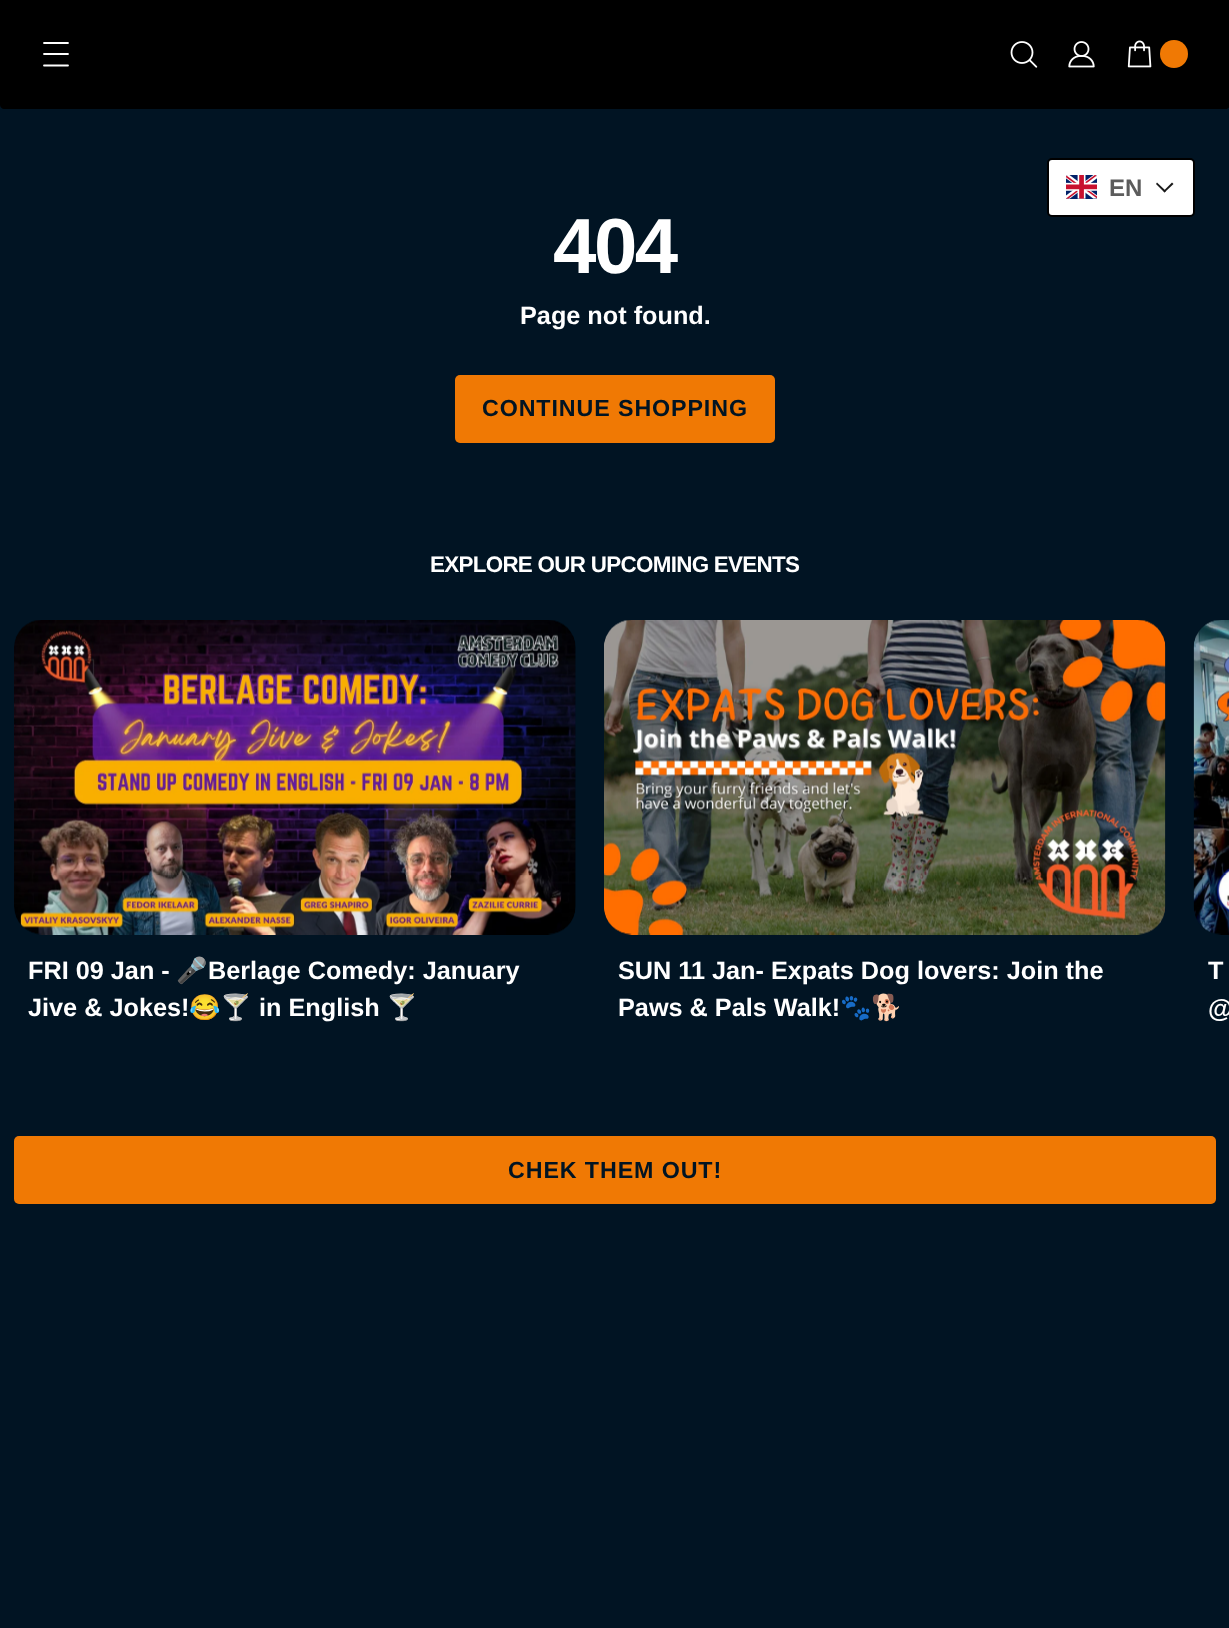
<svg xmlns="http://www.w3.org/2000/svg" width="1229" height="1628">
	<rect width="100%" height="100%" fill="#011423" />
	<path d="M0 0H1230V105C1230 107 1228 109 1226 109H4C2 109 0 107 0 105Z" fill="#000000" />
	<path d="M44 54H68M44 43H68M44 65.5H68" fill="none" stroke="#FFFFFF" stroke-width="1.8" stroke-linecap="round" stroke-linejoin="round" />
	<image x="1010" y="41" width="28" height="27" href="assets/img1.png" />
	<image x="1068" y="41" width="27" height="27" href="assets/img2.png" />
	<image x="1127" y="40" width="25" height="28" href="assets/img3.png" />
	<circle cx="1174" cy="54" r="14" fill="#F07904" />
	<rect x="1048" y="159" width="146" height="57" rx="4" fill="#FFFFFF" stroke="#000000" stroke-width="2" />
	<image x="1066" y="175" width="31" height="24" href="assets/img4.png" />
	<text x="1109" y="196" font-family="Liberation Sans" font-size="24" font-weight="700" fill="#5C5C5C">EN</text>
	<path d="M1172 182.5L1173.5 184L1164.5 192.5L1163.5 191Z" fill="#1A1A1A" />
	<path d="M1157 182.5L1166 191L1164.5 192.5L1156 184Z" fill="#1A1A1A" />
	<text x="553" y="273" font-family="Liberation Sans" font-size="78" font-weight="700" letter-spacing="-2.5" fill="#FFFFFF">404</text>
	<text x="520" y="324" font-family="Liberation Sans" font-size="25.25" font-weight="700" fill="#FFFFFF">Page not found.</text>
	<rect x="455" y="375" width="320" height="68" rx="5" fill="#F07904" />
	<text x="482" y="416" font-family="Liberation Sans" font-size="23.25" font-weight="700" letter-spacing="0.9" fill="#011423">CONTINUE SHOPPING</text>
	<text x="430" y="572" font-family="Liberation Sans" font-size="22.4" font-weight="700" letter-spacing="-0.7" fill="#FFFFFF">EXPLORE OUR UPCOMING EVENTS</text>
	<image x="14" y="620" width="562" height="315" href="assets/img5.png" />
	<text x="28" y="979" font-family="Liberation Sans" font-size="25.25" font-weight="700" fill="#FFFFFF">FRI 09 Jan -</text>
	<text x="176" y="979" font-family="Noto Color Emoji" font-size="25.25" font-weight="700" fill="#FFFFFF">🎤</text>
	<g font-family="Liberation Sans" font-size="25.25" font-weight="700" fill="#FFFFFF">
		<text x="208" y="979">Berlage Comedy: January</text>
		<text x="28" y="1016">Jive &amp; Jokes!</text>
	</g>
	<text x="189" y="1016" font-family="Noto Color Emoji" font-size="25.25" font-weight="700" fill="#FFFFFF">😂🍸</text>
	<text x="259" y="1016" font-family="Liberation Sans" font-size="25.25" font-weight="700" fill="#FFFFFF">in English</text>
	<text x="386" y="1016" font-family="Noto Color Emoji" font-size="25.25" font-weight="700" fill="#FFFFFF">🍸</text>
	<image x="604" y="620" width="562" height="315" href="assets/img6.png" />
	<g font-family="Liberation Sans" font-size="25.25" font-weight="700" fill="#FFFFFF">
		<text x="618" y="979">SUN 11 Jan- Expats Dog lovers: Join the</text>
		<text x="618" y="1016">Paws &amp; Pals Walk!</text>
	</g>
	<text x="840" y="1016" font-family="Noto Color Emoji" font-size="25.25" font-weight="700" fill="#FFFFFF">🐾🐕</text>
	<image x="1193" y="620" width="36" height="315" href="assets/img7.png" />
	<g font-family="Liberation Sans" font-size="25.25" font-weight="700" fill="#FFFFFF">
		<text x="1208" y="979">T</text>
		<text x="1208" y="1017">@</text>
	</g>
	<rect x="14" y="1136" width="1202" height="68" rx="5" fill="#F07904" />
	<text x="508" y="1178" font-family="Liberation Sans" font-size="23.25" font-weight="700" letter-spacing="0.9" fill="#011423">CHEK THEM OUT!</text>
</svg>
